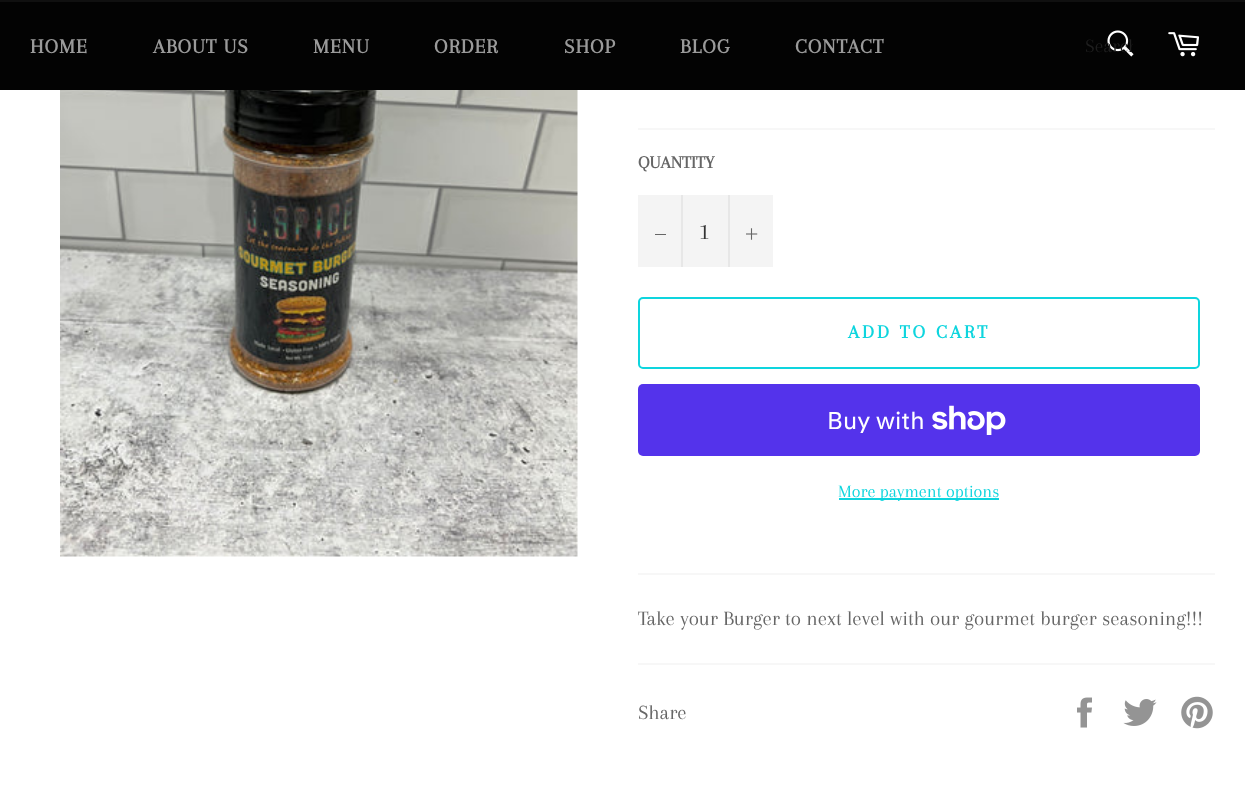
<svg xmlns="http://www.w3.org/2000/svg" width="1245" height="808">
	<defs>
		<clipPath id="clip1"><rect x="1085" y="36" width="48" height="21" /></clipPath>
	</defs>
	<rect width="100%" height="100%" fill="#FFFFFF" />
	<rect x="0" y="2" width="1245" height="88" fill="#030303" />
	<rect x="0" y="0" width="1245" height="2" fill="#101010" />
	<g font-family="Arapey" font-size="21" font-weight="700" letter-spacing="1" fill="#9A9A9A">
		<text x="30" y="53">HOME</text>
		<text x="153" y="53">ABOUT US</text>
		<text x="313" y="53">MENU</text>
		<text x="434" y="53">ORDER</text>
		<text x="564" y="53">SHOP</text>
		<text x="680" y="53">BLOG</text>
		<text x="795" y="53">CONTACT</text>
	</g>
	<image x="1107" y="30" width="27" height="27" href="assets/img1.png" />
	<g clip-path="url(#clip1)">
		<text x="1085" y="52" font-family="Arapey" font-size="19.5" fill="#1E1E1E">Search</text>
	</g>
	<image x="1168" y="32" width="31" height="25" href="assets/img2.png" />
	<image x="60" y="90" width="518" height="467" href="assets/img3.png" />
	<rect x="638" y="128" width="577" height="2" fill="#F7F7F7" />
	<text x="638" y="168" font-family="Arapey" font-size="18" font-weight="700" fill="#666666">QUANTITY</text>
	<rect x="638" y="195" width="135" height="72" fill="#F4F4F4" />
	<rect x="681" y="195" width="2" height="72" fill="#E7E7E7" />
	<rect x="655" y="234" width="11" height="1" fill="#666666" />
	<text x="699" y="239" font-family="Arapey" font-size="24" fill="#333333">1</text>
	<rect x="728" y="195" width="2" height="72" fill="#E7E7E7" />
	<image x="746" y="228" width="12" height="12" href="assets/img4.png" />
	<rect x="639" y="298" width="560" height="70" rx="4" fill="none" stroke="#0ED5DE" stroke-width="2" />
	<text x="848" y="338" font-family="Arapey" font-size="19.5" font-weight="700" letter-spacing="3" fill="#0ED5DE">ADD TO CART</text>
	<rect x="638" y="384" width="562" height="72" rx="5" fill="#5433EB" />
	<text x="827" y="429" font-family="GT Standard" font-size="24" fill="#FFFFFF">Buy with</text>
	<image x="932" y="405" width="74" height="30" href="assets/img5.png" />
	<rect x="839" y="498" width="160" height="2" fill="#0ED5DE" />
	<text x="838" y="497" font-family="Arapey" font-size="18" fill="#0ED5DE">More payment options</text>
	<rect x="638" y="573" width="577" height="2" fill="#F7F7F7" />
	<text x="638" y="625" font-family="Arapey" font-size="21" fill="#666666">Take your Burger to next level with our gourmet burger seasoning!!!</text>
	<rect x="638" y="663" width="577" height="2" fill="#F7F7F7" />
	<text x="638" y="719" font-family="Arapey" font-size="21" fill="#666666">Share</text>
	<image x="1077" y="697" width="15" height="31" href="assets/img6.png" />
	<image x="1123" y="699" width="34" height="27" href="assets/img7.png" />
	<image x="1181" y="696" width="32" height="33" href="assets/img8.png" />
</svg>
